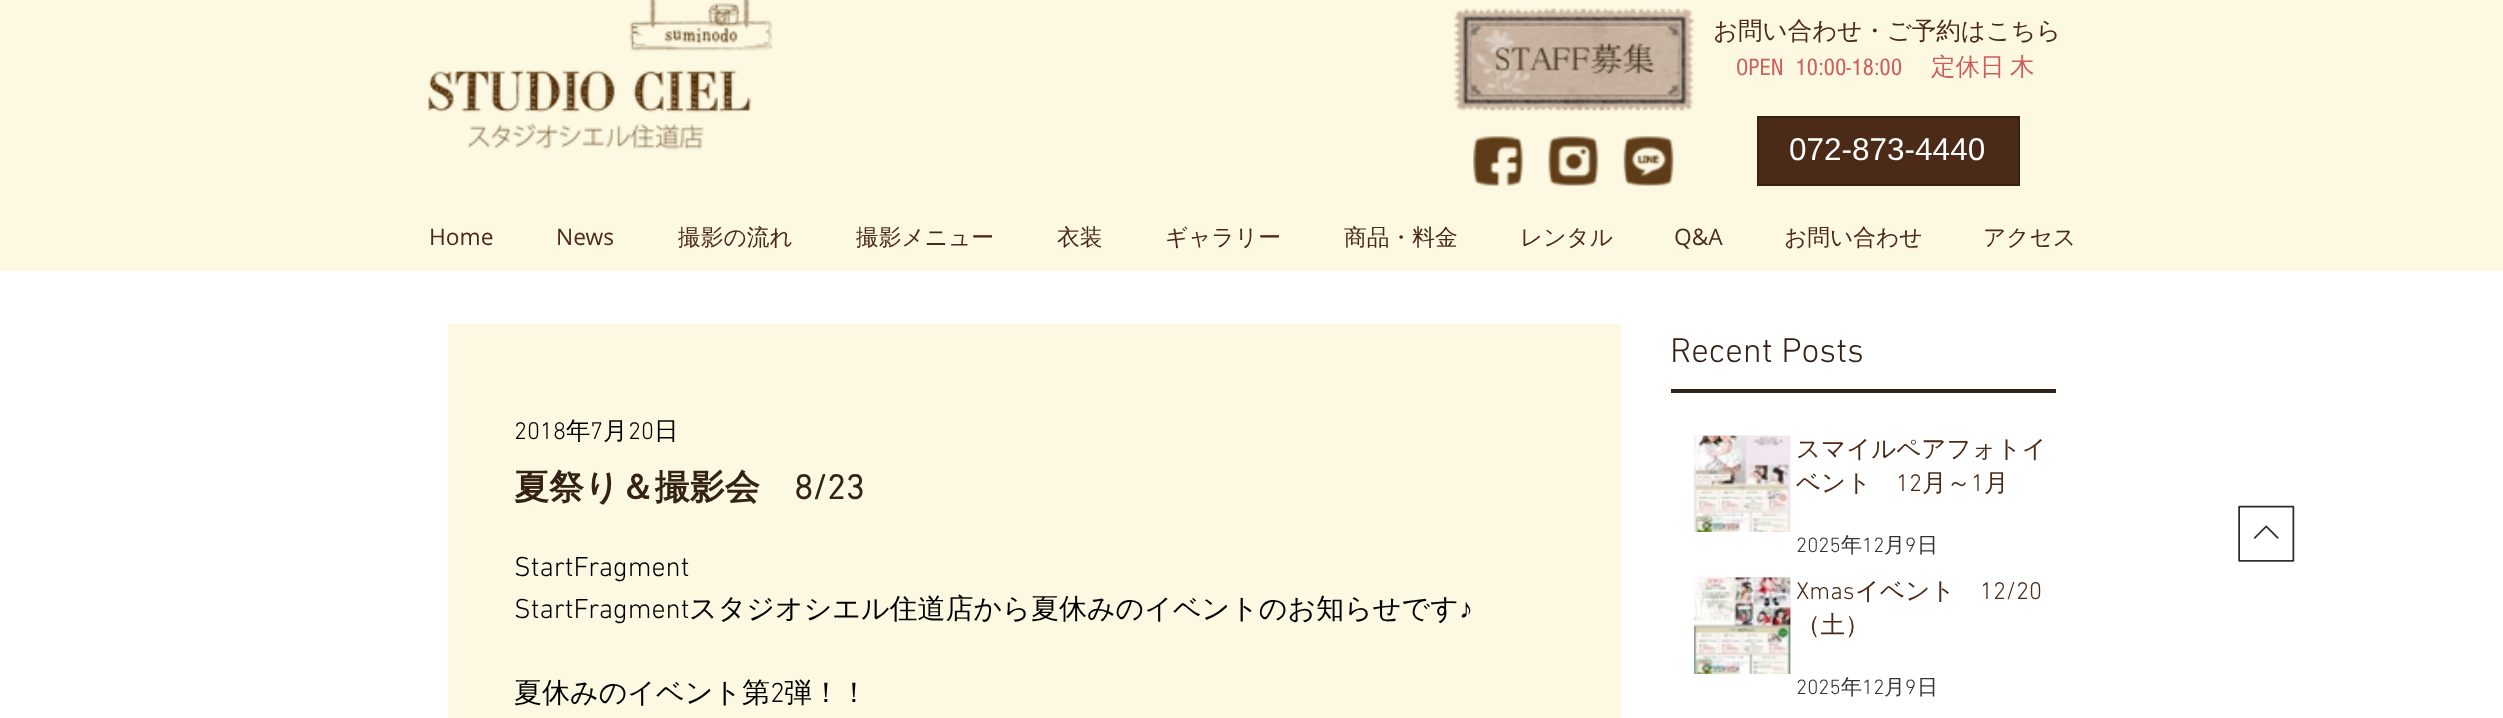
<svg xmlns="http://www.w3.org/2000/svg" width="2503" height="718">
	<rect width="100%" height="100%" fill="#FFFFFF" />
	<rect x="0" y="0" width="2503" height="271" fill="#FCF8E1" />
	<image x="428" y="0" width="345" height="150" href="assets/img1.png" />
	<image x="1454" y="8" width="240" height="103" href="assets/img2.png" />
	<text x="1713" y="39" font-family="WenQuanYi Zen Hei" font-size="24.5" font-weight="500" fill="#4B2A17">お問い合わせ・ご予約はこちら</text>
	<text x="1736" y="75" font-family="'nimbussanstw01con'" font-size="24.5" fill="#CD5E5E" xml:space="preserve">OPEN  10:00-18:00</text>
	<g font-family="WenQuanYi Zen Hei" font-size="24.5" font-weight="500" fill="#CD5E5E">
		<text x="1931" y="75">定休日</text>
		<text x="2010" y="75">木</text>
	</g>
	<image x="1473" y="136" width="51" height="50" href="assets/img3.png" />
	<image x="1548" y="136" width="51" height="50" href="assets/img4.png" />
	<image x="1623" y="136" width="51" height="50" href="assets/img5.png" />
	<rect x="1758" y="117" width="261" height="68" fill="#4B2A17" stroke="#342216" stroke-width="2" />
	<text x="1789" y="160" font-family="Liberation Sans" font-size="31.5" fill="#FFFFFF">072-873-4440</text>
	<g font-family="Open Sans" font-size="22.75" fill="#4B2A17">
		<text x="429" y="245">Home</text>
		<text x="556" y="245">News</text>
	</g>
	<g font-family="WenQuanYi Zen Hei" font-size="22.75" font-weight="500" fill="#4B2A17">
		<text x="678" y="245">撮影の流れ</text>
		<text x="856" y="245">撮影メニュー</text>
		<text x="1057" y="245">衣装</text>
		<text x="1165" y="245">ギャラリー</text>
		<text x="1344" y="245">商品・料金</text>
		<text x="1520" y="245">レンタル</text>
	</g>
	<text x="1674" y="245" font-family="Open Sans" font-size="22.75" fill="#4B2A17">Q&amp;A</text>
	<g font-family="WenQuanYi Zen Hei" font-size="22.75" font-weight="500" fill="#4B2A17">
		<text x="1784" y="245">お問い合わせ</text>
		<text x="1983" y="245">アクセス</text>
	</g>
	<text x="1670" y="362" font-family="'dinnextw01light'" font-size="35" font-weight="300" fill="#342216">Recent Posts</text>
	<rect x="1671" y="389" width="385" height="4" fill="#342216" />
	<rect x="448" y="324" width="1173" height="394" fill="#FCF8E1" />
	<text x="514" y="439" font-family="'dinnextw01light'" font-size="24.5" font-weight="300" fill="#000000">2018</text>
	<text x="566" y="439" font-family="WenQuanYi Zen Hei" font-size="24.5" font-weight="500" fill="#000000">年</text>
	<text x="590" y="439" font-family="'dinnextw01light'" font-size="24.5" font-weight="300" fill="#000000">7</text>
	<text x="603" y="439" font-family="WenQuanYi Zen Hei" font-size="24.5" font-weight="500" fill="#000000">月</text>
	<text x="628" y="439" font-family="'dinnextw01light'" font-size="24.5" font-weight="300" fill="#000000">20</text>
	<text x="654" y="439" font-family="WenQuanYi Zen Hei" font-size="24.5" font-weight="500" fill="#000000">日</text>
	<text x="514" y="499" font-family="WenQuanYi Zen Hei" font-size="35" font-weight="700" fill="#342216">夏祭り＆撮影会</text>
	<text x="794" y="499" font-family="'dinnextw01light'" font-size="35" font-weight="700" fill="#342216">8/23</text>
	<g font-family="'dinnextw01light'" font-size="28" font-weight="300" fill="#000000">
		<text x="514" y="576">StartFragment</text>
		<text x="514" y="618">StartFragment</text>
	</g>
	<text x="689" y="618" font-family="WenQuanYi Zen Hei" font-size="28" font-weight="500" fill="#000000">スタジオシエル住道店から夏休みのイベントのお知らせです</text>
	<text x="1459" y="618" font-family="Liberation Sans" font-size="28" fill="#000000">♪</text>
	<text x="514" y="702" font-family="WenQuanYi Zen Hei" font-size="28" font-weight="500" fill="#000000">夏休みのイベント第</text>
	<text x="770" y="702" font-family="'dinnextw01light'" font-size="28" font-weight="300" fill="#000000">2</text>
	<text x="784" y="702" font-family="WenQuanYi Zen Hei" font-size="28" font-weight="500" fill="#000000">弾！！</text>
	<image x="1694" y="435" width="97" height="97" href="assets/img6.png" />
	<image x="1694" y="435" width="97" height="97" href="assets/img7.png" />
	<g font-family="WenQuanYi Zen Hei" font-size="24.5" font-weight="500" fill="#4B2A17">
		<text x="1796" y="457">スマイルペアフォトイ</text>
		<text x="1796" y="491">ベント</text>
	</g>
	<text x="1896" y="491" font-family="'dinnextw01light'" font-size="24.5" font-weight="300" fill="#4B2A17">12</text>
	<text x="1922" y="491" font-family="WenQuanYi Zen Hei" font-size="24.5" font-weight="500" fill="#4B2A17">月～</text>
	<text x="1971" y="491" font-family="'dinnextw01light'" font-size="24.5" font-weight="300" fill="#4B2A17">1</text>
	<text x="1984" y="491" font-family="WenQuanYi Zen Hei" font-size="24.5" font-weight="500" fill="#4B2A17">月</text>
	<text x="1796" y="552" font-family="'dinnextw01light'" font-size="21" font-weight="300" fill="#333333">2025</text>
	<text x="1841" y="552" font-family="WenQuanYi Zen Hei" font-size="21" font-weight="500" fill="#333333">年</text>
	<text x="1862" y="552" font-family="'dinnextw01light'" font-size="21" font-weight="300" fill="#333333">12</text>
	<text x="1884" y="552" font-family="WenQuanYi Zen Hei" font-size="21" font-weight="500" fill="#333333">月</text>
	<text x="1905" y="552" font-family="'dinnextw01light'" font-size="21" font-weight="300" fill="#333333">9</text>
	<text x="1917" y="552" font-family="WenQuanYi Zen Hei" font-size="21" font-weight="500" fill="#333333">日</text>
	<image x="1694" y="577" width="97" height="97" href="assets/img8.png" />
	<image x="1694" y="577" width="97" height="97" href="assets/img9.png" />
	<text x="1796" y="599" font-family="'dinnextw01light'" font-size="24.5" font-weight="300" fill="#4B2A17">Xmas</text>
	<text x="1855" y="599" font-family="WenQuanYi Zen Hei" font-size="24.5" font-weight="500" fill="#4B2A17">イベント</text>
	<text x="1980" y="599" font-family="'dinnextw01light'" font-size="24.5" font-weight="300" fill="#4B2A17">12/20</text>
	<text x="1796" y="633" font-family="WenQuanYi Zen Hei" font-size="24.5" font-weight="500" fill="#4B2A17">（土）</text>
	<text x="1796" y="694" font-family="'dinnextw01light'" font-size="21" font-weight="300" fill="#333333">2025</text>
	<text x="1841" y="694" font-family="WenQuanYi Zen Hei" font-size="21" font-weight="500" fill="#333333">年</text>
	<text x="1862" y="694" font-family="'dinnextw01light'" font-size="21" font-weight="300" fill="#333333">12</text>
	<text x="1884" y="694" font-family="WenQuanYi Zen Hei" font-size="21" font-weight="500" fill="#333333">月</text>
	<text x="1905" y="694" font-family="'dinnextw01light'" font-size="21" font-weight="300" fill="#333333">9</text>
	<text x="1917" y="694" font-family="WenQuanYi Zen Hei" font-size="21" font-weight="500" fill="#333333">日</text>
	<image x="2238" y="505" width="57" height="57" href="assets/img10.png" />
</svg>
